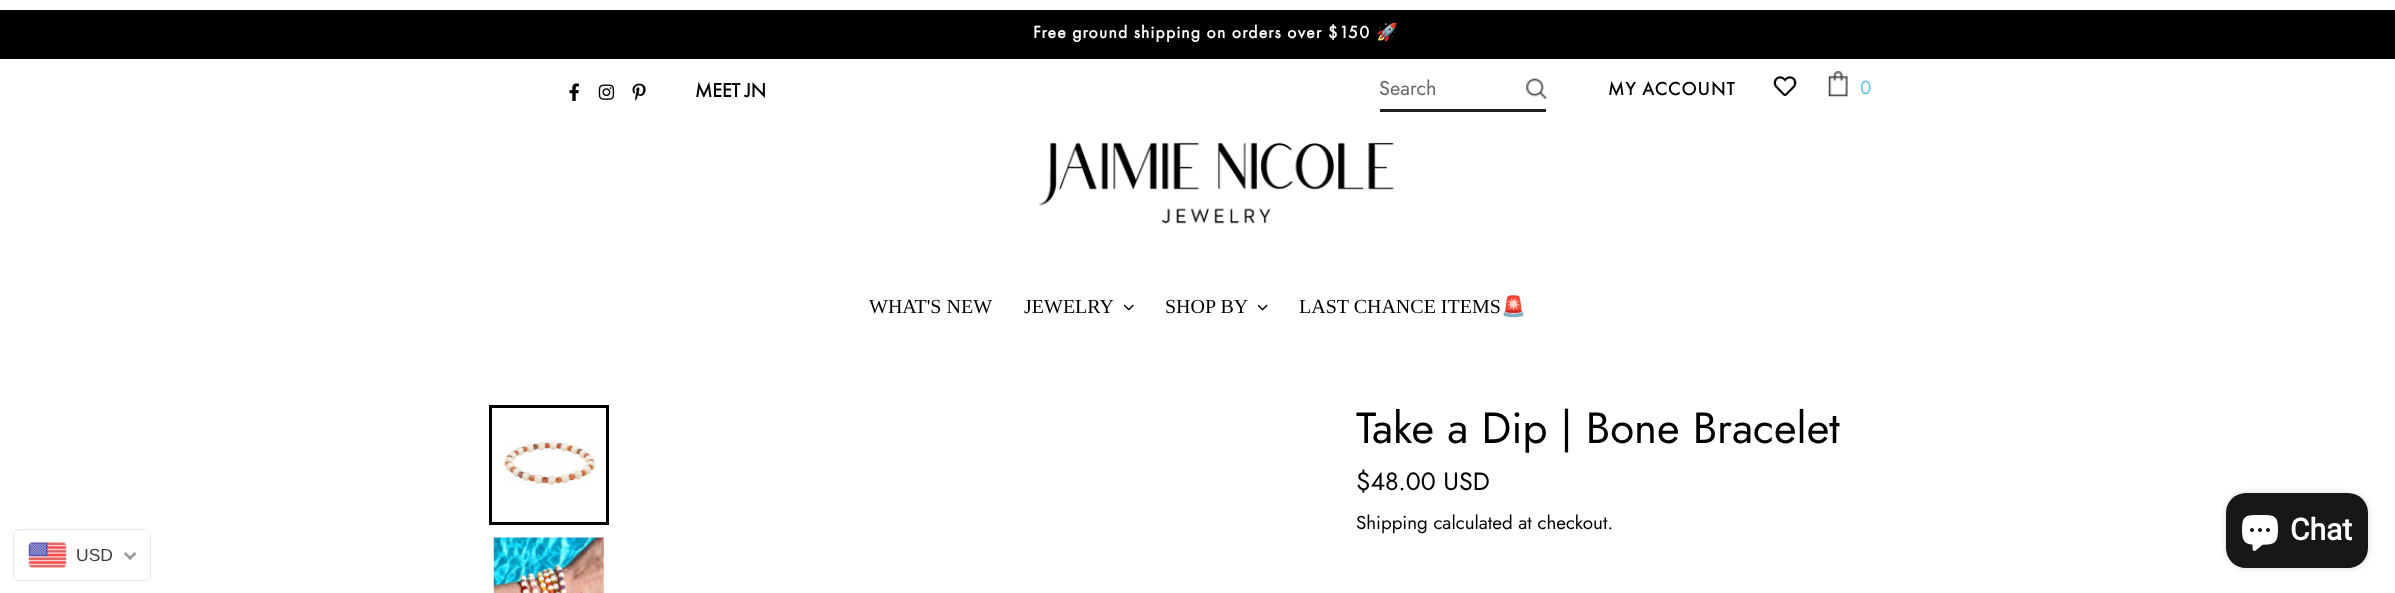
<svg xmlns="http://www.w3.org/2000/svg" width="2395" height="593">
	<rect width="100%" height="100%" fill="#FFFFFF" />
	<rect x="0" y="10" width="2395" height="49" fill="#000000" />
	<text x="1033" y="38" font-family="Futura PT" font-size="17.5" font-weight="700" letter-spacing="1.25" fill="#FFFFFF">Free ground shipping on orders over $150</text>
	<text x="1376" y="38" font-family="Noto Color Emoji" font-size="17.5" font-weight="700" letter-spacing="1.25" fill="#FFFFFF">🚀</text>
	<image x="569" y="83" width="10" height="18" href="assets/img1.png" />
	<image x="598" y="84" width="17" height="16" href="assets/img2.png" />
	<image x="632" y="83" width="14" height="18" href="assets/img3.png" />
	<text x="695" y="97" font-family="Futura PT" font-size="20" font-weight="700" fill="#000000">MEET JN</text>
	<rect x="1380" y="109" width="166" height="3" fill="#222222" />
	<text x="1379" y="95" font-family="Jost" font-size="20" fill="#666666">Search</text>
	<image x="1526" y="78" width="21" height="21" href="assets/img4.png" />
	<text x="1608" y="95" font-family="Futura PT" font-size="18.75" font-weight="700" letter-spacing="1.25" fill="#000000">MY ACCOUNT</text>
	<image x="1773" y="76" width="24" height="20" href="assets/img5.png" />
	<image x="1828" y="71" width="20" height="26" href="assets/img6.png" />
	<text x="1860" y="94" font-family="Futura PT" font-size="20" fill="#60C1E3">0</text>
	<image x="1039" y="142" width="355" height="82" href="assets/img7.png" />
	<g font-family="Liberation Serif" font-size="20" fill="#000000">
		<text x="869" y="313">WHAT'S NEW</text>
		<text x="1024" y="313">JEWELRY</text>
	</g>
	<image x="1124" y="304" width="10" height="7" href="assets/img8.png" />
	<text x="1165" y="313" font-family="Liberation Serif" font-size="20" fill="#000000">SHOP BY</text>
	<image x="1258" y="304" width="10" height="7" href="assets/img9.png" />
	<text x="1299" y="313" font-family="Liberation Serif" font-size="20" fill="#000000">LAST CHANCE ITEMS</text>
	<text x="1501" y="313" font-family="Noto Color Emoji" font-size="20" fill="#000000">🚨</text>
	<rect x="490.5" y="406.5" width="117" height="117" fill="none" stroke="#000000" stroke-width="3" />
	<image x="503" y="441" width="94" height="45" href="assets/img10.png" />
	<image x="493" y="537" width="111" height="56" href="assets/img11.png" />
	<rect x="1004" y="590" width="1" height="2" fill="#FBFAFD" />
	<text x="1356" y="443" font-family="Jost" font-size="43.75" fill="#000000">Take a Dip | Bone Bracelet</text>
	<text x="1356" y="490" font-family="Jost" font-size="25" fill="#000000">$48.00 USD</text>
	<text x="1356" y="529" font-family="Jost" font-size="18.75" fill="#000000">Shipping calculated at checkout.</text>
	<rect x="2226" y="493" width="142" height="75" rx="20" fill="#000000" fill-opacity="0.15" filter="blur(3px)" />
	<rect x="2226" y="493" width="142" height="75" rx="20" fill="#191619" />
	<image x="2242" y="515" width="36" height="36" href="assets/img12.png" />
	<text x="2290" y="540" font-family="Roboto" font-size="30" font-weight="700" fill="#FFFFFF">Chat</text>
	<rect x="13.5" y="529.5" width="137" height="51" rx="5.5" fill="none" stroke="#E8E8E8" />
	<image x="28" y="542" width="39" height="26" href="assets/img13.png" />
	<text x="76" y="561" font-family="Liberation Sans" font-size="17.5" fill="#403F3F">USD</text>
	<path d="M134.5 552L136.5 554L130 560L128.5 558Z" fill="#999999" />
	<path d="M125.5 552L132 558L130 560L124 554Z" fill="#999999" />
</svg>
